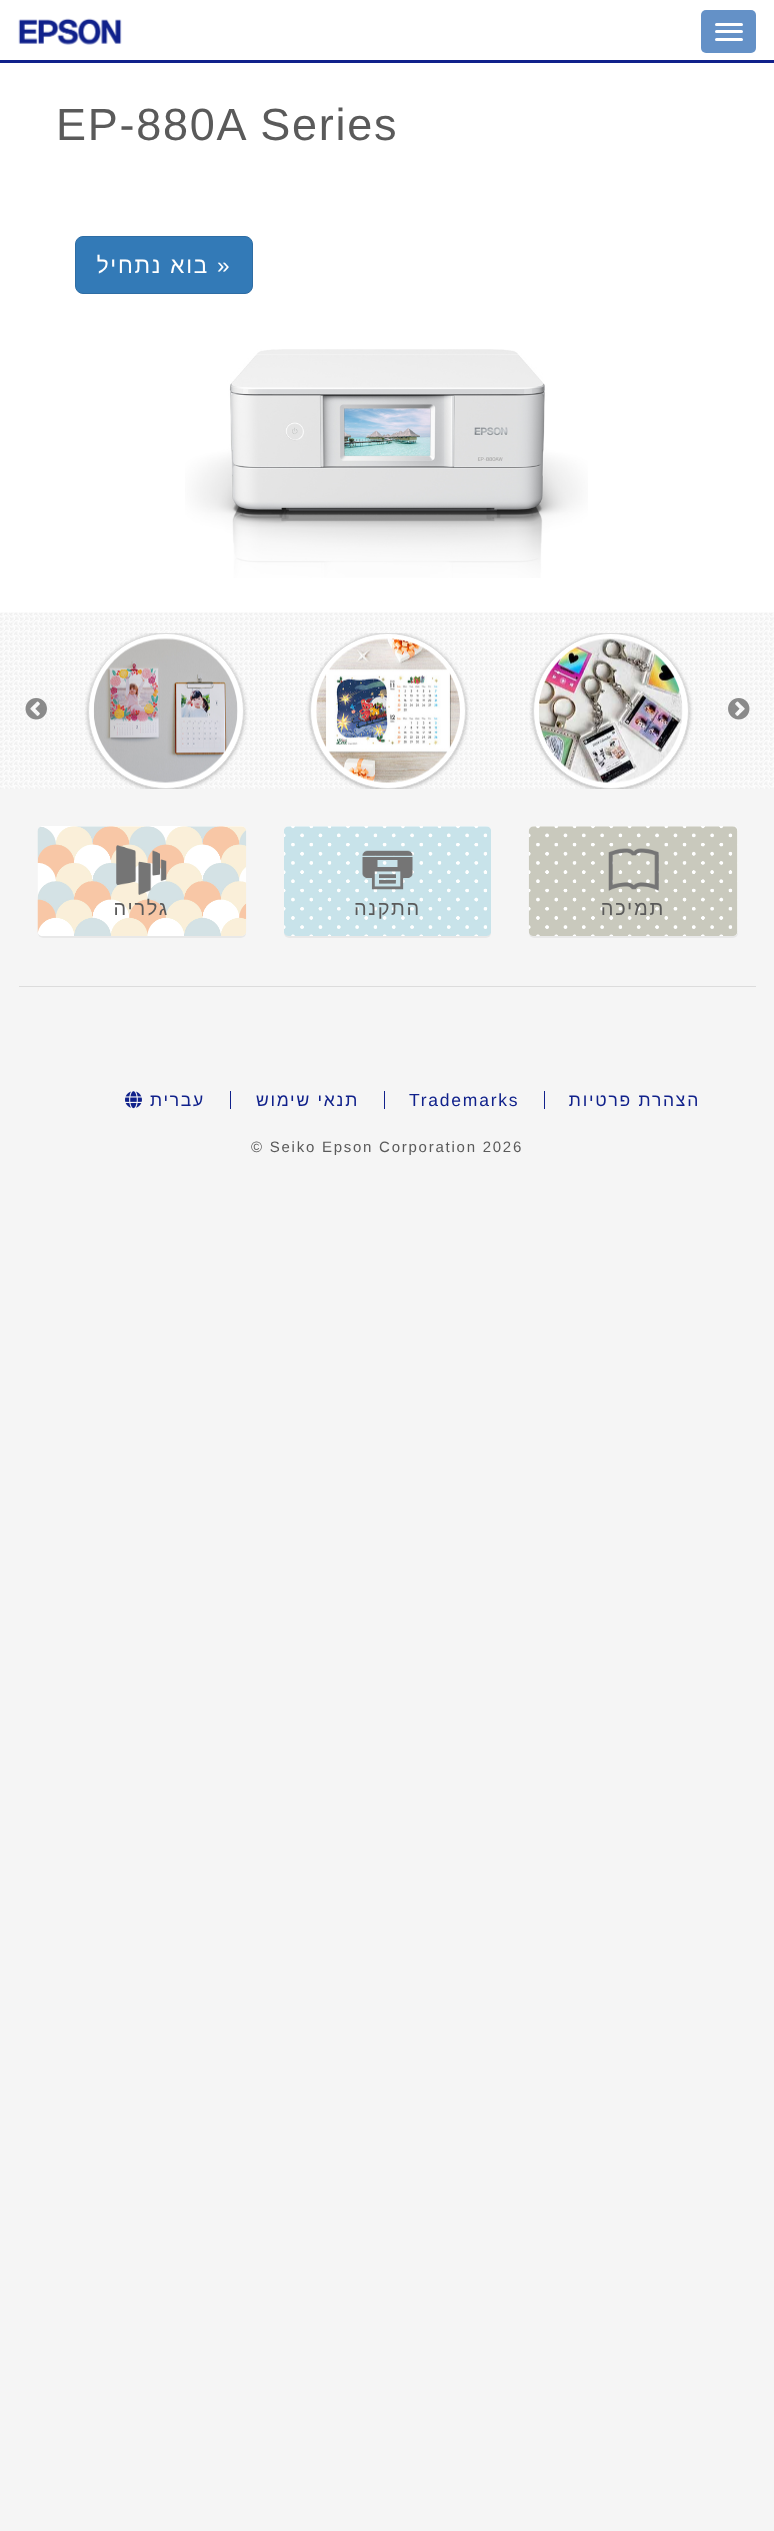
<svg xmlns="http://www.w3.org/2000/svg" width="774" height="2531">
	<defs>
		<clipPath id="clip1"><rect x="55" y="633" width="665" height="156" /></clipPath>
	</defs>
	<rect width="100%" height="100%" fill="#F5F5F5" />
	<rect x="0" y="0" width="774" height="60" fill="#FFFFFF" />
	<rect x="0" y="60" width="774" height="3" fill="#10218B" />
	<image x="18" y="18" width="104" height="27" href="assets/img1.png" />
	<rect x="701" y="10" width="55" height="43" rx="5" fill="#6491C7" />
	<rect x="715" y="23" width="28" height="3" rx="1.5" fill="#FFFFFF" />
	<rect x="715" y="30" width="28" height="3" rx="1.5" fill="#FFFFFF" />
	<rect x="715" y="38" width="28" height="3" rx="1.5" fill="#FFFFFF" />
	<rect x="0" y="63" width="774" height="550" fill="#FFFFFF" />
	<text x="56" y="140" font-family="Liberation Sans" font-size="45" letter-spacing="1.75" fill="#5A5A5A">EP-880A Series</text>
	<rect x="75.5" y="236.5" width="177" height="57" rx="7.5" fill="#337AB7" stroke="#2E6DA4" />
	<text x="209" y="273" font-family="Liberation Sans" font-size="22.5" letter-spacing="1.75" direction="rtl" fill="#FFFFFF">בוא נתחיל</text>
	<text x="217" y="273" font-family="Liberation Sans" font-size="22.5" letter-spacing="1.75" fill="#FFFFFF">»</text>
	<image x="185" y="349" width="403" height="229" href="assets/img2.png" />
	<image x="0" y="612" width="774" height="177" href="assets/img3.png" />
	<image x="25" y="698" width="22" height="22" href="assets/img4.png" />
	<g clip-path="url(#clip1)">
		<rect x="88" y="634" width="156" height="156" rx="78" fill="#000000" fill-opacity="0.3" filter="blur(2px)" />
	</g>
	<circle cx="166" cy="711" r="77.5" fill="#FFFFFF" stroke="#DDDDDD" />
	<image x="93" y="638" width="145" height="145" href="assets/img5.png" />
	<g clip-path="url(#clip1)">
		<rect x="310" y="634" width="156" height="156" rx="78" fill="#000000" fill-opacity="0.3" filter="blur(2px)" />
	</g>
	<circle cx="388" cy="711" r="77.5" fill="#FFFFFF" stroke="#DDDDDD" />
	<image x="316" y="638" width="144" height="145" href="assets/img6.png" />
	<g clip-path="url(#clip1)">
		<rect x="533" y="634" width="156" height="156" rx="78" fill="#000000" fill-opacity="0.3" filter="blur(2px)" />
	</g>
	<circle cx="611" cy="711" r="77.5" fill="#FFFFFF" stroke="#DDDDDD" />
	<image x="539" y="638" width="144" height="145" href="assets/img7.png" />
	<image x="728" y="698" width="22" height="22" href="assets/img8.png" />
	<rect x="38" y="828" width="208" height="110" rx="5" fill="#000000" fill-opacity="0.05" filter="blur(0.5px)" />
	<rect x="38" y="826" width="208" height="110" rx="5" fill="#FFFFFF" />
	<image x="37" y="826" width="210" height="110" href="assets/img9.png" />
	<image x="116" y="845" width="51" height="50" href="assets/img10.png" />
	<text x="169" y="915" font-family="Liberation Sans" font-size="20" letter-spacing="1.75" direction="rtl" fill="#5A5A5A">גלריה</text>
	<rect x="284" y="828" width="207" height="110" rx="5" fill="#000000" fill-opacity="0.05" filter="blur(0.5px)" />
	<rect x="284" y="826" width="207" height="110" rx="5" fill="#FFFFFF" />
	<image x="284" y="826" width="207" height="110" href="assets/img11.png" />
	<image x="362" y="850" width="51" height="40" href="assets/img12.png" />
	<text x="421" y="915" font-family="Liberation Sans" font-size="20" letter-spacing="1.75" direction="rtl" fill="#5A5A5A">התקנה</text>
	<rect x="529" y="828" width="209" height="110" rx="5" fill="#000000" fill-opacity="0.05" filter="blur(0.5px)" />
	<rect x="529" y="826" width="209" height="110" rx="5" fill="#FFFFFF" />
	<image x="528" y="826" width="210" height="110" href="assets/img13.png" />
	<image x="608" y="848" width="51" height="43" href="assets/img14.png" />
	<text x="665" y="915" font-family="Liberation Sans" font-size="20" letter-spacing="1.75" direction="rtl" fill="#5A5A5A">תמיכה</text>
	<rect x="19" y="986" width="737" height="1" fill="#DCDCDC" />
	<image x="125" y="1091" width="17" height="18" href="assets/img15.png" />
	<text x="205" y="1106" font-family="Liberation Sans" font-size="17.5" letter-spacing="1.75" direction="rtl" fill="#10218B">עברית</text>
	<rect x="230" y="1091" width="1" height="18" fill="#10218B" />
	<text x="359" y="1106" font-family="Liberation Sans" font-size="17.5" letter-spacing="1.75" direction="rtl" fill="#10218B">תנאי שימוש</text>
	<rect x="384" y="1091" width="1" height="18" fill="#10218B" />
	<text x="409" y="1106" font-family="Liberation Sans" font-size="17.5" letter-spacing="1.75" fill="#10218B">Trademarks</text>
	<rect x="544" y="1091" width="1" height="18" fill="#10218B" />
	<text x="700" y="1106" font-family="Liberation Sans" font-size="17.5" letter-spacing="1.75" direction="rtl" fill="#10218B">הצהרת פרטיות</text>
	<text x="251" y="1152" font-family="Liberation Sans" font-size="15" letter-spacing="1.75" fill="#5A5A5A">© Seiko Epson Corporation 2026</text>
</svg>
